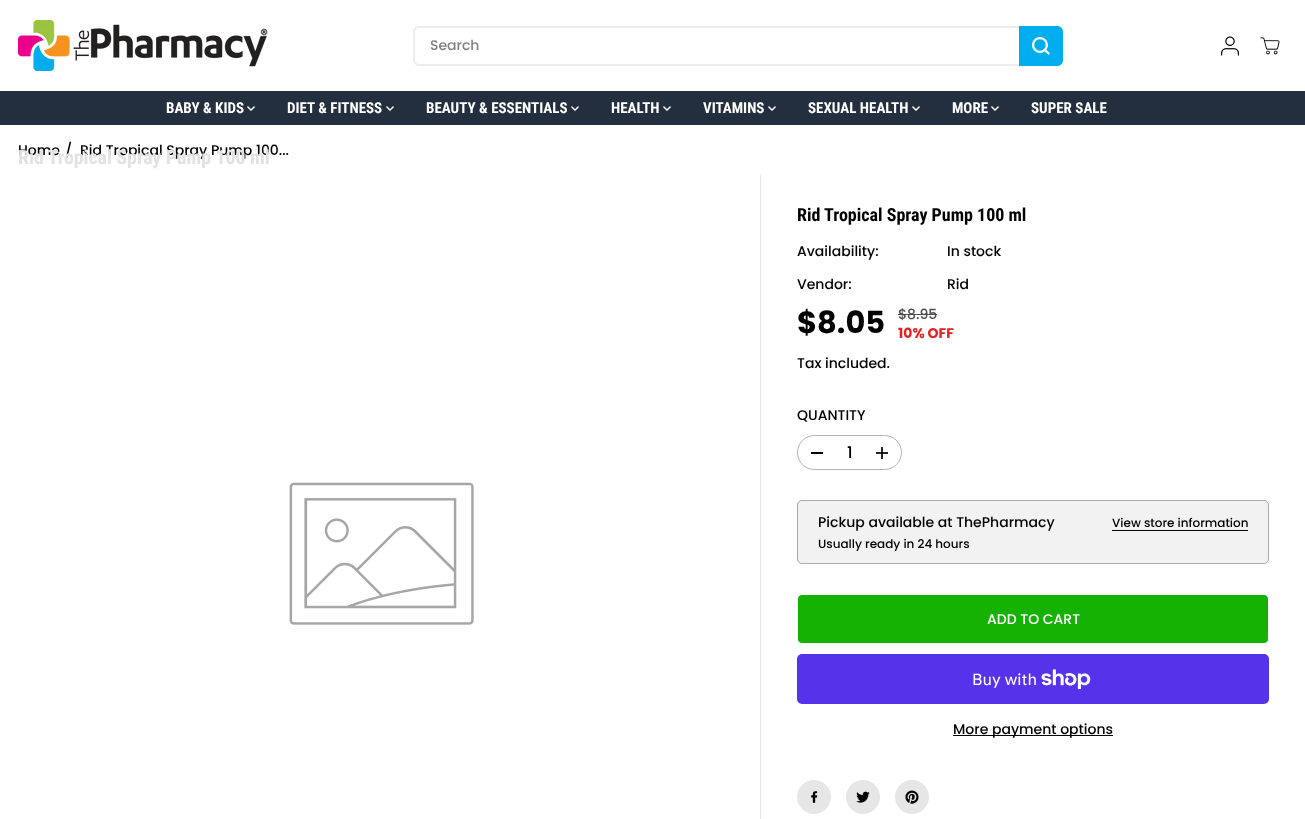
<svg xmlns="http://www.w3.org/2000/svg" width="1305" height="819">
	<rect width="100%" height="100%" fill="#FFFFFF" />
	<image x="18" y="20" width="250" height="51" href="assets/img1.png" />
	<rect x="414" y="27" width="648" height="38" rx="5" fill="none" stroke="#EDEDED" stroke-width="2" />
	<text x="430" y="50" font-family="Poppins" font-size="14" font-weight="500" fill="#808080">Search</text>
	<path d="M1019 26H1057C1060.5 26 1063 28.5 1063 32V60C1063 63.5 1060.5 66 1057 66H1019Z" fill="#00ADEE" />
	<image x="1032" y="37" width="18" height="18" href="assets/img2.png" />
	<image x="1221" y="36" width="18" height="20" href="assets/img3.png" />
	<image x="1260" y="37" width="20" height="18" href="assets/img4.png" />
	<rect x="0" y="91" width="1305" height="34" fill="#232F3E" />
	<text x="166" y="113" font-family="Roboto Condensed" font-size="15" font-weight="700" fill="#FFFFFF">BABY &amp; KIDS</text>
	<image x="247" y="106" width="8" height="5" href="assets/img5.png" />
	<text x="287" y="113" font-family="Roboto Condensed" font-size="15" font-weight="700" fill="#FFFFFF">DIET &amp; FITNESS</text>
	<image x="386" y="106" width="8" height="5" href="assets/img5.png" />
	<text x="426" y="113" font-family="Roboto Condensed" font-size="15" font-weight="700" fill="#FFFFFF">BEAUTY &amp; ESSENTIALS</text>
	<image x="571" y="106" width="8" height="5" href="assets/img5.png" />
	<text x="611" y="113" font-family="Roboto Condensed" font-size="15" font-weight="700" fill="#FFFFFF">HEALTH</text>
	<image x="663" y="106" width="8" height="5" href="assets/img5.png" />
	<text x="703" y="113" font-family="Roboto Condensed" font-size="15" font-weight="700" fill="#FFFFFF">VITAMINS</text>
	<image x="768" y="106" width="8" height="5" href="assets/img5.png" />
	<text x="808" y="113" font-family="Roboto Condensed" font-size="15" font-weight="700" fill="#FFFFFF">SEXUAL HEALTH</text>
	<image x="912" y="106" width="8" height="5" href="assets/img5.png" />
	<text x="952" y="113" font-family="Roboto Condensed" font-size="15" font-weight="700" fill="#FFFFFF">MORE</text>
	<image x="991" y="106" width="8" height="5" href="assets/img5.png" />
	<text x="1031" y="113" font-family="Roboto Condensed" font-size="15" font-weight="700" fill="#FFFFFF">SUPER SALE</text>
	<g font-family="Poppins" font-size="14" font-weight="500" fill="#000000">
		<text x="18" y="155">Home</text>
		<text x="65" y="155">/</text>
		<text x="80" y="155">Rid Tropical Spray Pump 100...</text>
	</g>
	<text x="18" y="164" font-family="Roboto Condensed" font-size="19.75" font-weight="700" fill="#E2E2E2">Rid Tropical Spray Pump 100 ml</text>
	<rect x="760" y="175" width="1" height="644" fill="#E6E6E6" />
	<image x="289" y="482" width="185" height="143" href="assets/img6.png" />
	<text x="797" y="221" font-family="Roboto Condensed" font-size="18" font-weight="700" fill="#000000">Rid Tropical Spray Pump 100 ml</text>
	<g font-family="Poppins" font-size="14" font-weight="500" fill="#000000">
		<text x="797" y="256">Availability:</text>
		<text x="947" y="256">In stock</text>
		<text x="797" y="289">Vendor:</text>
		<text x="947" y="289">Rid</text>
	</g>
	<text x="797" y="333" font-family="Poppins" font-size="30.5" font-weight="700" fill="#000000">$8.05</text>
	<text x="898" y="319" font-family="Poppins" font-size="14" font-weight="500" fill="#4D4D4D">$8.95</text>
	<rect x="898" y="314" width="39" height="1" fill="#4D4D4D" />
	<text x="898" y="338" font-family="Poppins" font-size="14" font-weight="700" fill="#E22120">10% OFF</text>
	<g font-family="Poppins" font-size="14" font-weight="500" fill="#000000">
		<text x="797" y="368">Tax included.</text>
		<text x="797" y="420">QUANTITY</text>
	</g>
	<rect x="797.5" y="435.5" width="104" height="34" rx="17" fill="none" stroke="#B3B3B3" />
	<rect x="811" y="452" width="12" height="2" fill="#000000" />
	<text x="847" y="458" font-family="Poppins" font-size="16" font-weight="500" fill="#000000">1</text>
	<image x="876" y="447" width="12" height="12" href="assets/img7.png" />
	<rect x="797" y="500" width="472" height="64" rx="5" fill="#F2F2F2" />
	<rect x="797.5" y="500.5" width="471" height="63" rx="4.5" fill="none" stroke="#000000" stroke-opacity="0.3" />
	<text x="818" y="527" font-family="Poppins" font-size="14" font-weight="500" fill="#000000">Pickup available at ThePharmacy</text>
	<g font-family="Poppins" font-size="12" font-weight="500" fill="#000000">
		<text x="818" y="548">Usually ready in 24 hours</text>
		<text x="1112" y="527">View store information</text>
	</g>
	<rect x="1112" y="530" width="136" height="1" fill="#000000" />
	<rect x="797.5" y="594.5" width="471" height="49" rx="4.5" fill="#15B103" stroke="#FFFFFF" />
	<text x="987" y="624" font-family="Poppins" font-size="14" font-weight="500" fill="#FFFFFF">ADD TO CART</text>
	<rect x="797" y="654" width="472" height="50" rx="5" fill="#5433EB" />
	<text x="972" y="685" font-family="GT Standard" font-size="16" fill="#FFFFFF">Buy with</text>
	<image x="1041" y="669" width="50" height="20" href="assets/img8.png" />
	<rect x="953" y="735" width="160" height="1" fill="#000000" />
	<text x="953" y="734" font-family="Poppins" font-size="14" font-weight="500" fill="#000000">More payment options</text>
	<circle cx="814" cy="797" r="17" fill="#E6E6E6" />
	<image x="811" y="791" width="7" height="12" href="assets/img9.png" />
	<circle cx="863" cy="797" r="17" fill="#E6E6E6" />
	<image x="856" y="791" width="14" height="12" href="assets/img10.png" />
	<circle cx="912" cy="797" r="17" fill="#E6E6E6" />
	<image x="905" y="790" width="14" height="14" href="assets/img11.png" />
</svg>
